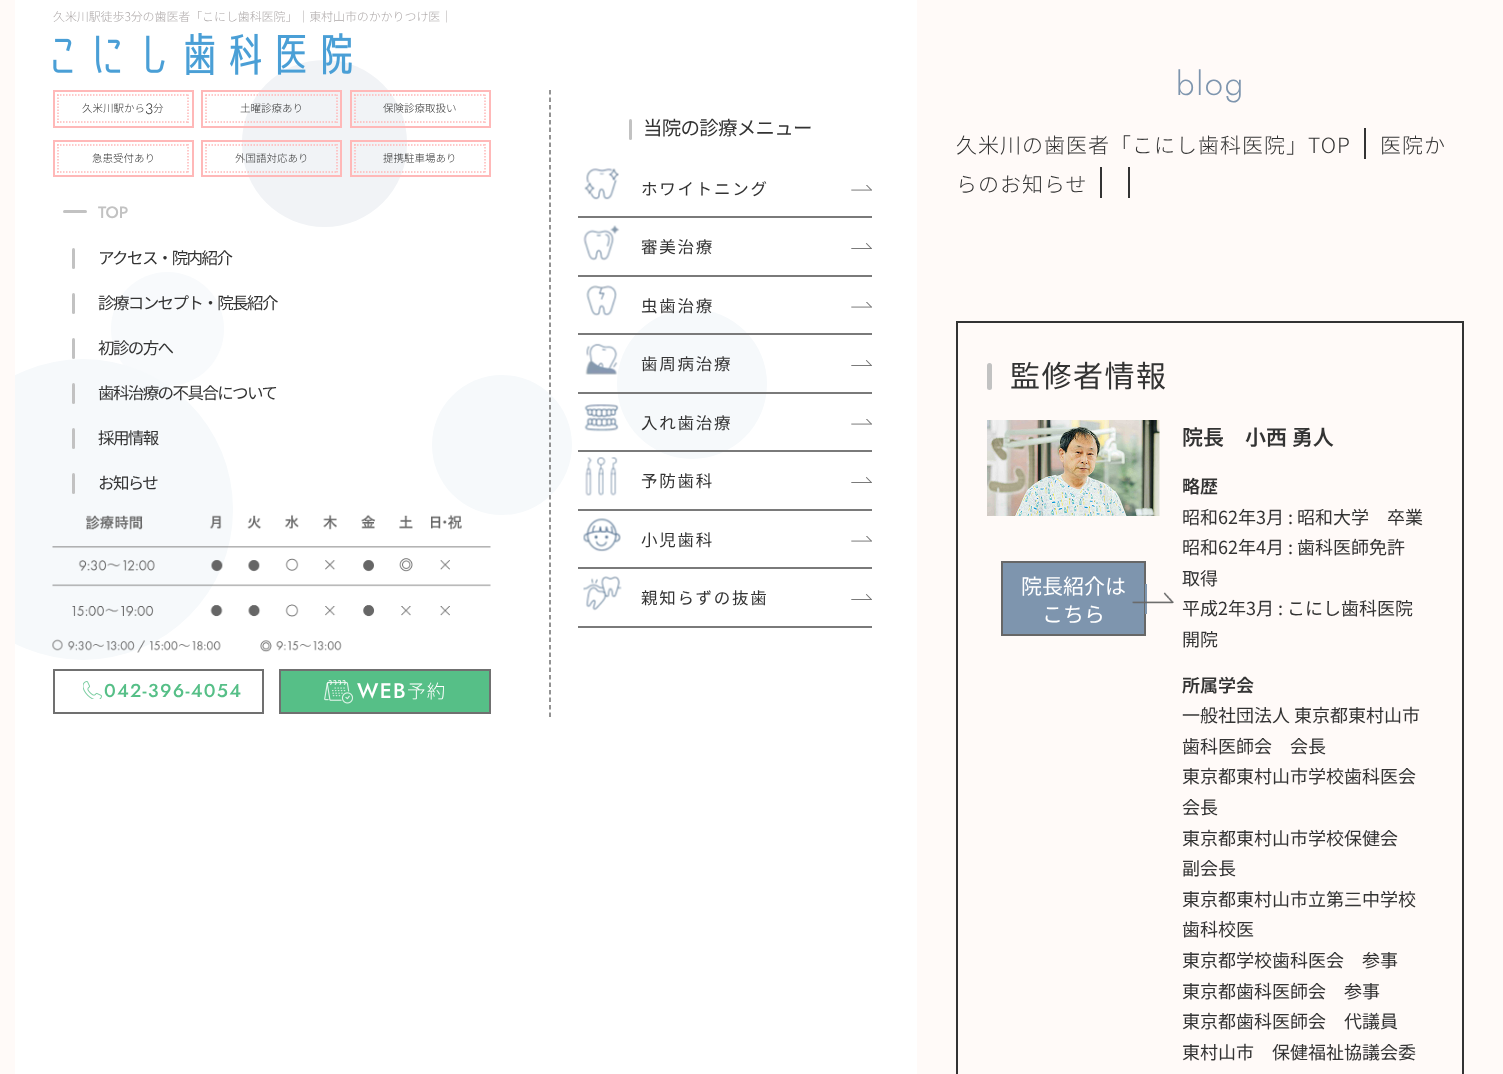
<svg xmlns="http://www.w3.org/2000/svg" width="1503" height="1074">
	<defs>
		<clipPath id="clip1"><rect x="15" y="0" width="902" height="1074" /></clipPath>
	</defs>
	<rect width="100%" height="100%" fill="#FFFAF8" />
	<rect x="15" y="0" width="902" height="1074" fill="#FFFFFF" />
	<text x="53" y="21" font-family="Noto Sans JP" font-size="12" font-weight="300" letter-spacing="-0.1" fill="#AEA9A9">久米川駅徒歩3分の歯医者「こにし歯科医院」｜東村山市のかかりつけ医｜</text>
	<rect x="242" y="60" width="165" height="167" rx="82.5" fill="#F1F3F6" />
	<image x="53" y="33" width="299" height="42" href="assets/img1.png" />
	<rect x="111" y="272" width="113" height="114" rx="56.5" fill="#F8FAFC" />
	<circle cx="692" cy="384" r="75" fill="#F6F9FB" />
	<g clip-path="url(#clip1)">
		<rect x="-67" y="359" width="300" height="301" rx="150" fill="#F6F9FB" />
	</g>
	<circle cx="502" cy="445" r="70" fill="#F6F9FB" />
	<rect x="54" y="91" width="139" height="36" fill="none" stroke="#FFB8B8" stroke-width="2" />
	<path d="M57 95H189" fill="none" stroke="#FFB8B8" stroke-width="1.5" stroke-dasharray="1.5 1.5" />
	<path d="M188 94.5V123" fill="none" stroke="#FFB8B8" stroke-width="1.5" stroke-dasharray="1.5 1.5" />
	<path d="M57 122H189" fill="none" stroke="#FFB8B8" stroke-width="1.5" stroke-dasharray="1.5 1.5" />
	<path d="M58 94.5V123" fill="none" stroke="#FFB8B8" stroke-width="1.5" stroke-dasharray="1.5 1.5" />
	<text x="82" y="112" font-family="Noto Sans JP" font-size="10.5" font-weight="300" fill="#333333">久米川駅から</text>
	<text x="145" y="114" font-family="Jost" font-size="15" font-weight="300" fill="#333333">3</text>
	<text x="153" y="112" font-family="Noto Sans JP" font-size="10.5" font-weight="300" fill="#333333">分</text>
	<rect x="202" y="91" width="139" height="36" fill="none" stroke="#FFB8B8" stroke-width="2" />
	<path d="M205.5 95H337.5" fill="none" stroke="#FFB8B8" stroke-width="1.5" stroke-dasharray="1.5 1.5" />
	<path d="M337 94.5V123" fill="none" stroke="#FFB8B8" stroke-width="1.5" stroke-dasharray="1.5 1.5" />
	<path d="M205.5 122H337.5" fill="none" stroke="#FFB8B8" stroke-width="1.5" stroke-dasharray="1.5 1.5" />
	<path d="M206 94.5V123" fill="none" stroke="#FFB8B8" stroke-width="1.5" stroke-dasharray="1.5 1.5" />
	<text x="240" y="112" font-family="Noto Sans JP" font-size="10.5" font-weight="300" fill="#333333">土曜診療あり</text>
	<rect x="351" y="91" width="139" height="36" fill="none" stroke="#FFB8B8" stroke-width="2" />
	<path d="M354 95H486" fill="none" stroke="#FFB8B8" stroke-width="1.5" stroke-dasharray="1.5 1.5" />
	<path d="M485 94.5V123" fill="none" stroke="#FFB8B8" stroke-width="1.5" stroke-dasharray="1.5 1.5" />
	<path d="M354 122H486" fill="none" stroke="#FFB8B8" stroke-width="1.5" stroke-dasharray="1.5 1.5" />
	<path d="M355 94.5V123" fill="none" stroke="#FFB8B8" stroke-width="1.5" stroke-dasharray="1.5 1.5" />
	<text x="383" y="112" font-family="Noto Sans JP" font-size="10.5" font-weight="300" fill="#333333">保険診療取扱い</text>
	<rect x="54" y="141" width="139" height="35" fill="none" stroke="#FFB8B8" stroke-width="2" />
	<path d="M57 145H189" fill="none" stroke="#FFB8B8" stroke-width="1.5" stroke-dasharray="1.5 1.5" />
	<path d="M188 144V172.5" fill="none" stroke="#FFB8B8" stroke-width="1.5" stroke-dasharray="1.5 1.5" />
	<path d="M57 172H189" fill="none" stroke="#FFB8B8" stroke-width="1.5" stroke-dasharray="1.5 1.5" />
	<path d="M58 144V172.5" fill="none" stroke="#FFB8B8" stroke-width="1.5" stroke-dasharray="1.5 1.5" />
	<text x="92" y="162" font-family="Noto Sans JP" font-size="10.5" font-weight="300" fill="#333333">急患受付あり</text>
	<rect x="202" y="141" width="139" height="35" fill="none" stroke="#FFB8B8" stroke-width="2" />
	<path d="M205.5 145H337.5" fill="none" stroke="#FFB8B8" stroke-width="1.5" stroke-dasharray="1.5 1.5" />
	<path d="M337 144V172.5" fill="none" stroke="#FFB8B8" stroke-width="1.5" stroke-dasharray="1.5 1.5" />
	<path d="M205.5 172H337.5" fill="none" stroke="#FFB8B8" stroke-width="1.5" stroke-dasharray="1.5 1.5" />
	<path d="M206 144V172.5" fill="none" stroke="#FFB8B8" stroke-width="1.5" stroke-dasharray="1.5 1.5" />
	<text x="235" y="162" font-family="Noto Sans JP" font-size="10.5" font-weight="300" fill="#333333">外国語対応あり</text>
	<rect x="351" y="141" width="139" height="35" fill="none" stroke="#FFB8B8" stroke-width="2" />
	<path d="M354 145H486" fill="none" stroke="#FFB8B8" stroke-width="1.5" stroke-dasharray="1.5 1.5" />
	<path d="M485 144V172.5" fill="none" stroke="#FFB8B8" stroke-width="1.5" stroke-dasharray="1.5 1.5" />
	<path d="M354 172H486" fill="none" stroke="#FFB8B8" stroke-width="1.5" stroke-dasharray="1.5 1.5" />
	<path d="M355 144V172.5" fill="none" stroke="#FFB8B8" stroke-width="1.5" stroke-dasharray="1.5 1.5" />
	<text x="383" y="162" font-family="Noto Sans JP" font-size="10.5" font-weight="300" fill="#333333">提携駐車場あり</text>
	<path d="M550 90V717" fill="none" stroke="#707070" stroke-width="1.5" stroke-dasharray="4.5 3" />
	<rect x="63" y="210" width="24" height="3" rx="1.5" fill="#C2C2C2" />
	<text x="98" y="218" font-family="Jost" font-size="16.5" font-weight="500" fill="#C2C2C2">TOP</text>
	<rect x="72" y="248" width="3" height="21" rx="1.5" fill="#C2C2C2" />
	<text x="98" y="264" font-family="Noto Sans JP" font-size="16.5" letter-spacing="-1.6" fill="#333333">アクセス・院内紹介</text>
	<rect x="72" y="293" width="3" height="21" rx="1.5" fill="#C2C2C2" />
	<text x="98" y="309" font-family="Noto Sans JP" font-size="16.5" letter-spacing="-1.6" fill="#333333">診療コンセプト・院長紹介</text>
	<rect x="72" y="338" width="3" height="21" rx="1.5" fill="#C2C2C2" />
	<text x="98" y="354" font-family="Noto Sans JP" font-size="16.5" letter-spacing="-1.6" fill="#333333">初診の方へ</text>
	<rect x="72" y="383" width="3" height="21" rx="1.5" fill="#C2C2C2" />
	<text x="98" y="399" font-family="Noto Sans JP" font-size="16.5" letter-spacing="-1.6" fill="#333333">歯科治療の不具合について</text>
	<rect x="72" y="428" width="3" height="21" rx="1.5" fill="#C2C2C2" />
	<text x="98" y="444" font-family="Noto Sans JP" font-size="16.5" letter-spacing="-1.6" fill="#333333">採用情報</text>
	<rect x="72" y="473" width="3" height="21" rx="1.5" fill="#C2C2C2" />
	<text x="98" y="489" font-family="Noto Sans JP" font-size="16.5" letter-spacing="-1.6" fill="#333333">お知らせ</text>
	<image x="52" y="514" width="439" height="139" href="assets/img2.png" />
	<rect x="54" y="670" width="209" height="43" fill="none" stroke="#707070" stroke-width="2" />
	<image x="83" y="681" width="19" height="18" href="assets/img3.png" />
	<text x="104" y="697" font-family="Jost" font-size="18.75" font-weight="500" letter-spacing="1.25" fill="#56BF87">042-396-4054</text>
	<rect x="280" y="670" width="210" height="43" fill="#56BF87" stroke="#707070" stroke-width="2" />
	<image x="324" y="680" width="29" height="24" href="assets/img4.png" />
	<text x="357" y="698" font-family="Jost" font-size="21" font-weight="500" letter-spacing="1.25" fill="#FFFFFF">WEB</text>
	<text x="407" y="698" font-family="Noto Sans JP" font-size="18.5" font-weight="300" letter-spacing="1.25" fill="#FFFFFF">予約</text>
	<rect x="629" y="119" width="3" height="21" rx="1.5" fill="#C2C2C2" />
	<text x="643" y="135" font-family="Noto Sans JP" font-size="19.5" letter-spacing="-0.75" fill="#333333">当院の診療メニュー</text>
	<rect x="578" y="216" width="294" height="2" fill="#7A7A7A" />
	<image x="584" y="168" width="35" height="32" href="assets/img5.png" />
	<text x="641" y="195" font-family="Noto Sans JP" font-size="16.5" letter-spacing="1.75" fill="#333333">ホワイトニング</text>
	<image x="851" y="185" width="21" height="6" href="assets/img6.png" />
	<rect x="578" y="275" width="294" height="2" fill="#7A7A7A" />
	<image x="583" y="225" width="37" height="36" href="assets/img7.png" />
	<text x="641" y="253" font-family="Noto Sans JP" font-size="16.5" letter-spacing="1.75" fill="#333333">審美治療</text>
	<image x="851" y="243" width="21" height="6" href="assets/img8.png" />
	<rect x="578" y="333" width="294" height="2" fill="#7A7A7A" />
	<image x="586" y="285" width="31" height="31" href="assets/img9.png" />
	<text x="641" y="312" font-family="Noto Sans JP" font-size="16.5" letter-spacing="1.75" fill="#333333">虫歯治療</text>
	<image x="851" y="302" width="21" height="6" href="assets/img6.png" />
	<rect x="578" y="392" width="294" height="2" fill="#7A7A7A" />
	<image x="585" y="343" width="33" height="32" href="assets/img10.png" />
	<text x="641" y="370" font-family="Noto Sans JP" font-size="16.5" letter-spacing="1.75" fill="#333333">歯周病治療</text>
	<image x="851" y="360" width="21" height="6" href="assets/img8.png" />
	<rect x="578" y="450" width="294" height="2" fill="#7A7A7A" />
	<image x="584" y="404" width="35" height="28" href="assets/img11.png" />
	<text x="641" y="429" font-family="Noto Sans JP" font-size="16.5" letter-spacing="1.75" fill="#333333">入れ歯治療</text>
	<image x="851" y="419" width="21" height="6" href="assets/img6.png" />
	<rect x="578" y="509" width="294" height="2" fill="#7A7A7A" />
	<image x="585" y="457" width="33" height="39" href="assets/img12.png" />
	<text x="641" y="487" font-family="Noto Sans JP" font-size="16.5" letter-spacing="1.75" fill="#333333">予防歯科</text>
	<image x="851" y="477" width="21" height="6" href="assets/img8.png" />
	<rect x="578" y="567" width="294" height="2" fill="#7A7A7A" />
	<image x="583" y="518" width="38" height="34" href="assets/img13.png" />
	<text x="641" y="546" font-family="Noto Sans JP" font-size="16.5" letter-spacing="1.75" fill="#333333">小児歯科</text>
	<image x="851" y="536" width="21" height="6" href="assets/img6.png" />
	<rect x="578" y="626" width="294" height="2" fill="#7A7A7A" />
	<image x="583" y="576" width="39" height="35" href="assets/img14.png" />
	<text x="641" y="604" font-family="Noto Sans JP" font-size="16.5" letter-spacing="1.75" fill="#333333">親知らずの抜歯</text>
	<image x="851" y="594" width="21" height="6" href="assets/img8.png" />
	<text x="1176" y="95" font-family="Jost" font-size="33" font-weight="300" letter-spacing="1.75" fill="#7E95AE">blog</text>
	<text x="956" y="153" font-family="Noto Sans JP" font-size="21" font-weight="300" letter-spacing="1" fill="#333333">久米川の歯医者「こにし歯科医院」TOP</text>
	<rect x="1364" y="128" width="2" height="31" fill="#333333" />
	<g font-family="Noto Sans JP" font-size="21" font-weight="300" letter-spacing="1" fill="#333333">
		<text x="1380" y="153">医院か</text>
		<text x="956" y="192">らのお知らせ</text>
	</g>
	<rect x="1100" y="167" width="2" height="31" fill="#333333" />
	<rect x="1128" y="167" width="2" height="31" fill="#333333" />
	<rect x="957" y="322" width="506" height="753" fill="none" stroke="#333333" stroke-width="2" />
	<rect x="987" y="363" width="5" height="27" rx="2.5" fill="#C2C2C2" />
	<text x="1010" y="387" font-family="Noto Sans JP" font-size="30" letter-spacing="1.5" fill="#333333">監修者情報</text>
	<image x="987" y="420" width="173" height="96" href="assets/img15.png" />
	<rect x="1002" y="562" width="143" height="73" fill="#7E95AE" stroke="#676767" stroke-width="2" />
	<text x="1021" y="594" font-family="Noto Sans JP" font-size="21" fill="#FFFFFF">院長紹介は</text>
	<rect x="1145" y="584" width="2" height="30" fill="#7E95AE" />
	<image x="1132" y="592" width="42" height="12" href="assets/img16.png" />
	<text x="1042" y="622" font-family="Noto Sans JP" font-size="21" fill="#FFFFFF">こちら</text>
	<text x="1182" y="445" font-family="Noto Sans JP" font-size="21" font-weight="600" fill="#333333">院長　小西 勇人</text>
	<text x="1182" y="493" font-family="Noto Sans JP" font-size="18" font-weight="600" fill="#333333">略歴</text>
	<g font-family="Noto Sans JP" font-size="18" fill="#333333">
		<text x="1182" y="524">昭和62年3月 : 昭和大学　卒業</text>
		<text x="1182" y="554">昭和62年4月 : 歯科医師免許</text>
		<text x="1182" y="585">取得</text>
		<text x="1182" y="615">平成2年3月 : こにし歯科医院</text>
		<text x="1182" y="646">開院</text>
	</g>
	<text x="1182" y="692" font-family="Noto Sans JP" font-size="18" font-weight="600" fill="#333333">所属学会</text>
	<g font-family="Noto Sans JP" font-size="18" fill="#333333">
		<text x="1182" y="722">一般社団法人 東京都東村山市</text>
		<text x="1182" y="753">歯科医師会　会長</text>
		<text x="1182" y="783">東京都東村山市学校歯科医会</text>
		<text x="1182" y="814">会長</text>
		<text x="1182" y="845">東京都東村山市学校保健会</text>
		<text x="1182" y="875">副会長</text>
		<text x="1182" y="906">東京都東村山市立第三中学校</text>
		<text x="1182" y="936">歯科校医</text>
		<text x="1182" y="967">東京都学校歯科医会　参事</text>
		<text x="1182" y="998">東京都歯科医師会　参事</text>
		<text x="1182" y="1028">東京都歯科医師会　代議員</text>
		<text x="1182" y="1059">東村山市　保健福祉協議会委</text>
	</g>
</svg>
